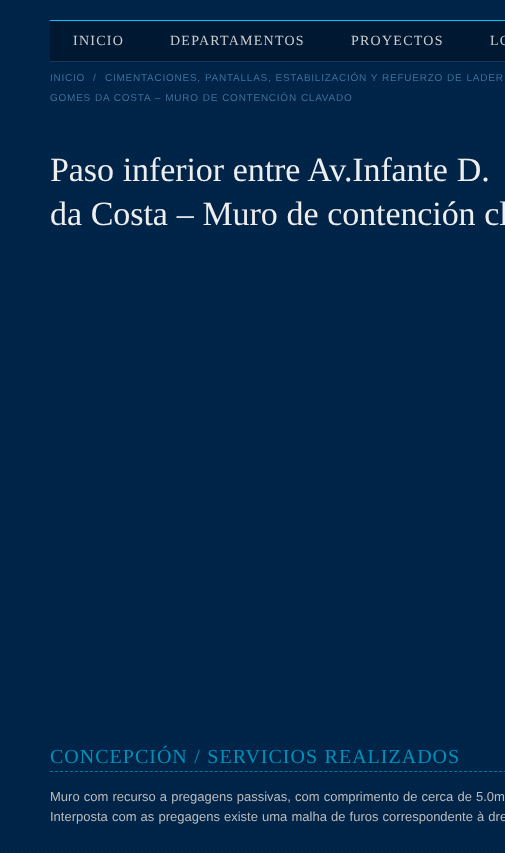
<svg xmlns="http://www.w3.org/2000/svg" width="505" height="853">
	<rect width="100%" height="100%" fill="#003366" />
	<image x="0" y="0" width="505" height="853" href="assets/img1.png" />
	<image x="50" y="19" width="455" height="44" href="assets/img2.png" />
	<rect x="50" y="21" width="455" height="40" fill="#000000" fill-opacity="0.3" />
	<rect x="50" y="20" width="455" height="1" fill="#00C7FF" />
	<g font-family="Liberation Serif" font-size="14" letter-spacing="1.25" fill="#CCCCCC">
		<text x="73" y="45">INICIO</text>
		<text x="170" y="45">DEPARTAMENTOS</text>
		<text x="351" y="45">PROYECTOS</text>
		<text x="490" y="45">LC</text>
	</g>
	<g font-family="Liberation Sans" font-size="10" letter-spacing="0.75" fill="#3F709A">
		<text x="50" y="81">INICIO</text>
		<text x="93" y="81">/</text>
		<text x="105" y="81" word-spacing="0.5">CIMENTACIONES, PANTALLAS, ESTABILIZACIÓN Y REFUERZO DE LADER</text>
		<text x="50" y="101" word-spacing="0.5">GOMES DA COSTA – MURO DE CONTENCIÓN CLAVADO</text>
	</g>
	<g font-family="Liberation Serif" font-size="34" letter-spacing="-0.1" fill="#EEEEEE">
		<text x="50" y="181" word-spacing="0.5">Paso inferior entre Av.Infante D.</text>
		<text x="50" y="225" word-spacing="0.5">da Costa – Muro de contención cl</text>
	</g>
	<path d="M50 771.5H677" fill="none" stroke="#00CCFF" stroke-opacity="0.5" stroke-dasharray="3 1.99" />
	<text x="50" y="763" word-spacing="0.5" font-family="Liberation Serif" font-size="20" letter-spacing="1" fill="#0091BA">CONCEPCIÓN / SERVICIOS REALIZADOS</text>
	<g font-family="Liberation Sans" font-size="13" fill="#BBBBBB">
		<text x="50" y="801" word-spacing="0.5">Muro com recurso a pregagens passivas, com comprimento de cerca de 5.0m</text>
		<text x="50" y="821" word-spacing="0.5">Interposta com as pregagens existe uma malha de furos correspondente à dre</text>
	</g>
</svg>
